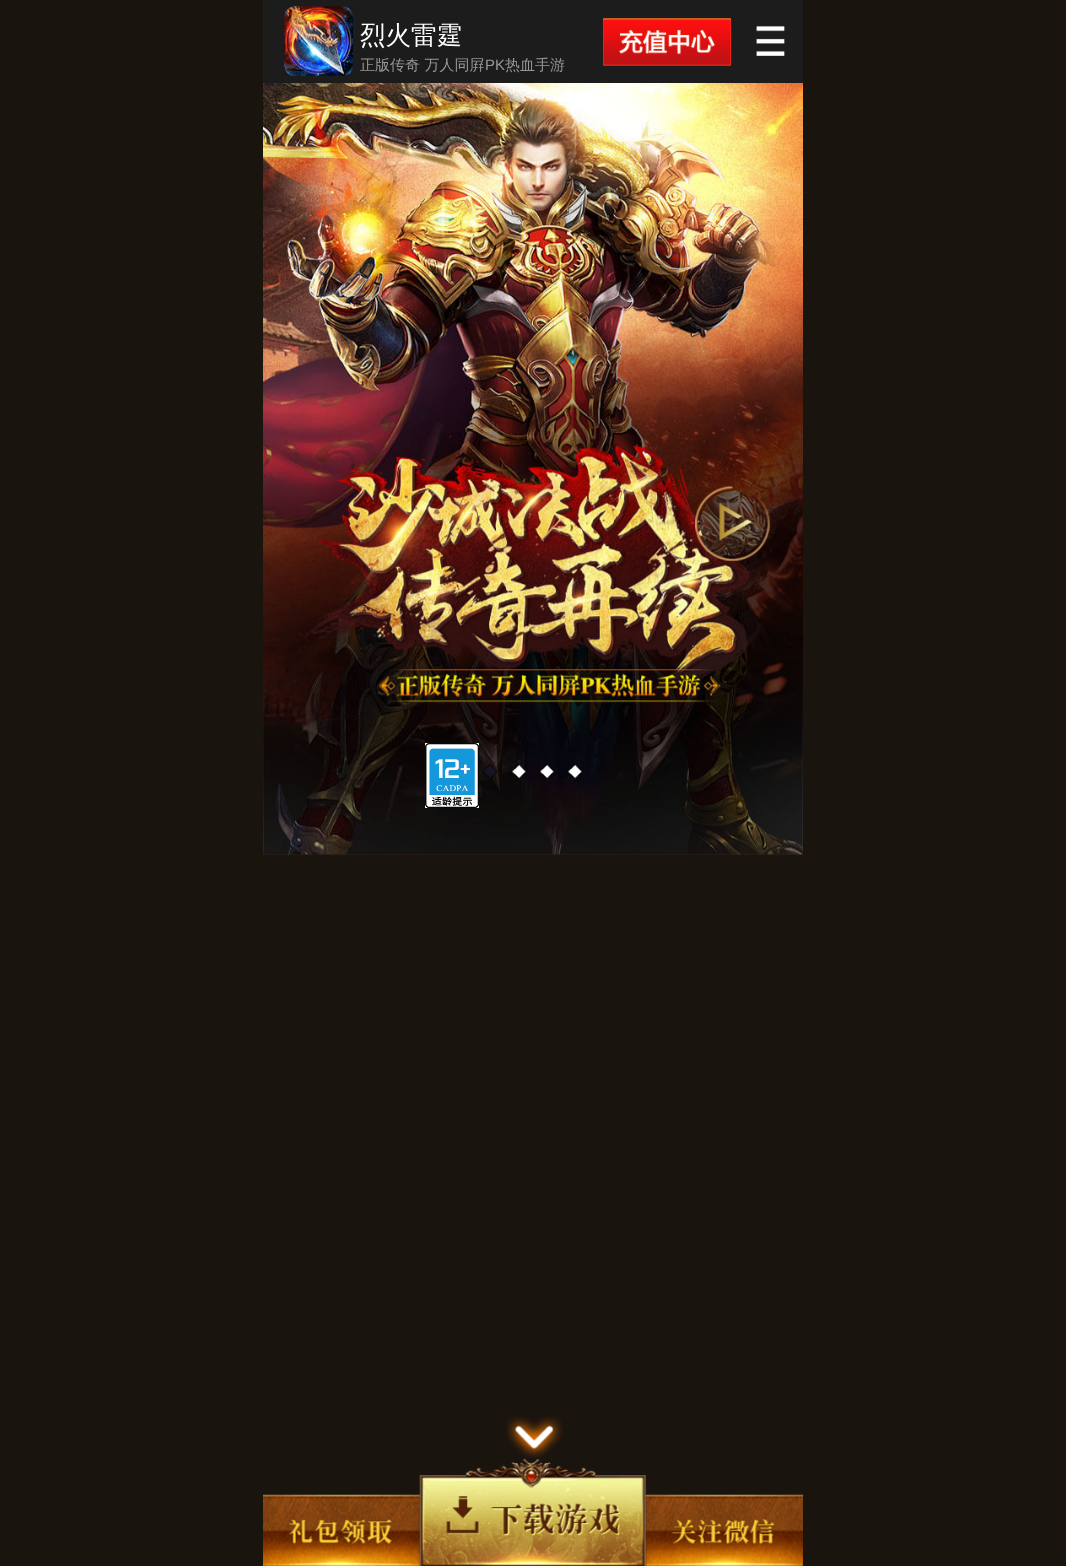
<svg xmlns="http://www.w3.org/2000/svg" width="1066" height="1566">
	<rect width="100%" height="100%" fill="#1A140F" />
	<rect x="263" y="0" width="540" height="83" fill="#1C1C1C" />
	<image x="284" y="6" width="69" height="70" href="assets/img1.png" />
	<text x="360" y="44" font-family="WenQuanYi Zen Hei" font-size="25.5" font-weight="500" fill="#FFFFFF">烈火雷霆</text>
	<text x="360" y="70" font-family="WenQuanYi Zen Hei" font-size="15" font-weight="500" fill="#979797">正版传奇 万人同屛</text>
	<text x="485" y="70" font-family="Liberation Sans" font-size="15" fill="#979797">PK</text>
	<text x="505" y="70" font-family="WenQuanYi Zen Hei" font-size="15" font-weight="500" fill="#979797">热血手游</text>
	<image x="603" y="18" width="128" height="48" href="assets/img2.png" />
	<image x="756" y="26" width="29" height="30" href="assets/img3.png" />
	<image x="263" y="83" width="540" height="772" href="assets/img4.png" />
	<image x="482" y="764" width="16" height="15" href="assets/img5.png" />
	<image x="512" y="764" width="14" height="15" href="assets/img6.png" />
	<image x="539" y="764" width="16" height="15" href="assets/img7.png" />
	<image x="567" y="764" width="16" height="15" href="assets/img8.png" />
	<image x="695" y="486" width="75" height="75" href="assets/img9.png" />
	<image x="700" y="491" width="65" height="65" href="assets/img10.png" />
	<image x="425" y="743" width="54" height="65" href="assets/img11.png" />
	<image x="263" y="1458" width="540" height="108" href="assets/img12.png" />
	<image x="506" y="1416" width="57" height="42" href="assets/img13.png" />
	<image x="452" y="1496" width="21" height="23" href="assets/img14.png" />
</svg>
